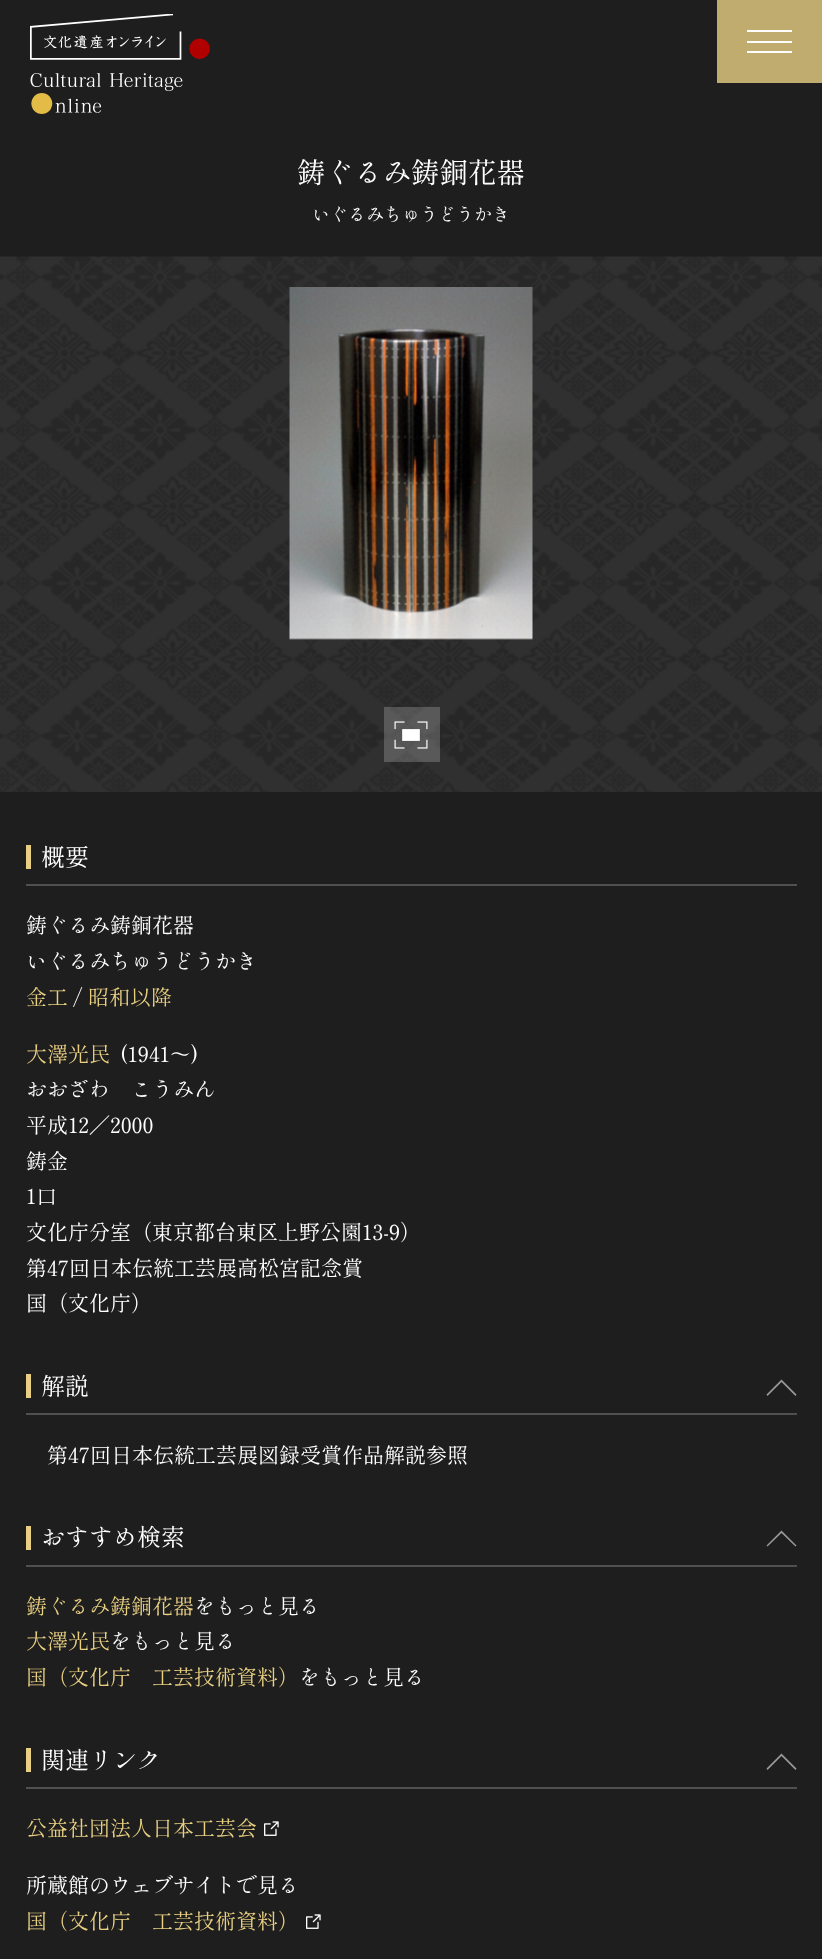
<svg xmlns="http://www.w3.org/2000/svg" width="822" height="1959">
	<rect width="100%" height="100%" fill="#1E1E1E" />
	<image x="30" y="14" width="180" height="100" href="assets/img1.png" />
	<rect x="717" y="0" width="105" height="83" fill="#C0AC6E" />
	<rect x="747" y="30" width="45" height="2" fill="#FFFFFF" />
	<rect x="747" y="41" width="45" height="2" fill="#FFFFFF" />
	<rect x="747" y="51" width="45" height="2" fill="#FFFFFF" />
	<text x="297" y="183" font-family="Shippori Mincho" font-size="28.5" fill="#FFFFFF">鋳ぐるみ鋳銅花器</text>
	<text x="312" y="221" font-family="Shippori Mincho" font-size="18" fill="#FFFFFF">いぐるみちゅうどうかき</text>
	<image x="0" y="256" width="822" height="536" href="assets/img2.png" />
	<image x="289" y="287" width="244" height="353" href="assets/img3.png" />
	<rect x="384" y="707" width="56" height="55" fill="#FFFFFF" fill-opacity="0.2" />
	<image x="394" y="721" width="34" height="28" href="assets/img4.png" />
	<rect x="26" y="884" width="771" height="2" fill="#505050" />
	<rect x="26" y="845" width="5" height="24" fill="#E8CF82" />
	<text x="41" y="866" font-family="Shippori Mincho" font-size="24" fill="#FFFFFF">概要</text>
	<g font-family="Shippori Mincho" font-size="21" fill="#FFFFFF">
		<text x="26" y="933">鋳ぐるみ鋳銅花器</text>
		<text x="26" y="969">いぐるみちゅうどうかき</text>
	</g>
	<text x="26" y="1005" font-family="Shippori Mincho" font-size="21" fill="#E8CF82">金工</text>
	<text x="73" y="1005" font-family="Shippori Mincho" font-size="21" fill="#FFFFFF">/</text>
	<g font-family="Shippori Mincho" font-size="21" fill="#E8CF82">
		<text x="88" y="1005">昭和以降</text>
		<text x="26" y="1062">大澤光民</text>
	</g>
	<g font-family="Shippori Mincho" font-size="21" fill="#FFFFFF">
		<text x="120" y="1062">(1941～)</text>
		<text x="26" y="1097">おおざわ　こうみん</text>
		<text x="26" y="1133">平成12／2000</text>
		<text x="26" y="1169">鋳金</text>
		<text x="26" y="1204">1口</text>
		<text x="26" y="1240">文化庁分室（東京都台東区上野公園13-9）</text>
		<text x="26" y="1276">第47回日本伝統工芸展高松宮記念賞</text>
		<text x="26" y="1311">国（文化庁）</text>
	</g>
	<rect x="26" y="1413" width="771" height="2" fill="#505050" />
	<rect x="26" y="1374" width="5" height="24" fill="#E8CF82" />
	<text x="41" y="1395" font-family="Shippori Mincho" font-size="24" fill="#FFFFFF">解説</text>
	<path d="M781.5 1379.5L796.5 1394.5L795.5 1396L781.5 1382L767.5 1396L766.5 1394.5Z" fill="#999999" />
	<text x="47" y="1463" font-family="Shippori Mincho" font-size="21" fill="#FFFFFF">第47回日本伝統工芸展図録受賞作品解説参照</text>
	<rect x="26" y="1565" width="771" height="2" fill="#505050" />
	<rect x="26" y="1526" width="5" height="24" fill="#E8CF82" />
	<text x="41" y="1546" font-family="Shippori Mincho" font-size="24" fill="#FFFFFF">おすすめ検索</text>
	<path d="M781.5 1530.5L796.5 1545.5L795.5 1546.5L781.5 1533L767.5 1546.5L766.5 1545.5Z" fill="#999999" />
	<text x="26" y="1614" font-family="Shippori Mincho" font-size="21" fill="#E8CF82">鋳ぐるみ鋳銅花器</text>
	<text x="194" y="1614" font-family="Shippori Mincho" font-size="21" fill="#FFFFFF">をもっと見る</text>
	<text x="26" y="1649" font-family="Shippori Mincho" font-size="21" fill="#E8CF82">大澤光民</text>
	<text x="110" y="1649" font-family="Shippori Mincho" font-size="21" fill="#FFFFFF">をもっと見る</text>
	<text x="26" y="1685" font-family="Shippori Mincho" font-size="21" fill="#E8CF82">国（文化庁　工芸技術資料）</text>
	<text x="299" y="1685" font-family="Shippori Mincho" font-size="21" fill="#FFFFFF">をもっと見る</text>
	<rect x="26" y="1787" width="771" height="2" fill="#505050" />
	<rect x="26" y="1748" width="5" height="24" fill="#E8CF82" />
	<text x="41" y="1769" font-family="Shippori Mincho" font-size="24" fill="#FFFFFF">関連リンク</text>
	<path d="M781.5 1753.5L796.5 1768.5L795.5 1770L781.5 1756L767.5 1770L766.5 1768.5Z" fill="#999999" />
	<text x="26" y="1836" font-family="Shippori Mincho" font-size="21" fill="#E8CF82">公益社団法人日本工芸会</text>
	<image x="264" y="1821" width="15" height="15" href="assets/img5.png" />
	<text x="26" y="1893" font-family="Shippori Mincho" font-size="21" fill="#FFFFFF">所蔵館のウェブサイトで見る</text>
	<text x="26" y="1929" font-family="Shippori Mincho" font-size="21" fill="#E8CF82">国（文化庁　工芸技術資料）</text>
	<image x="306" y="1914" width="15" height="15" href="assets/img5.png" />
</svg>
